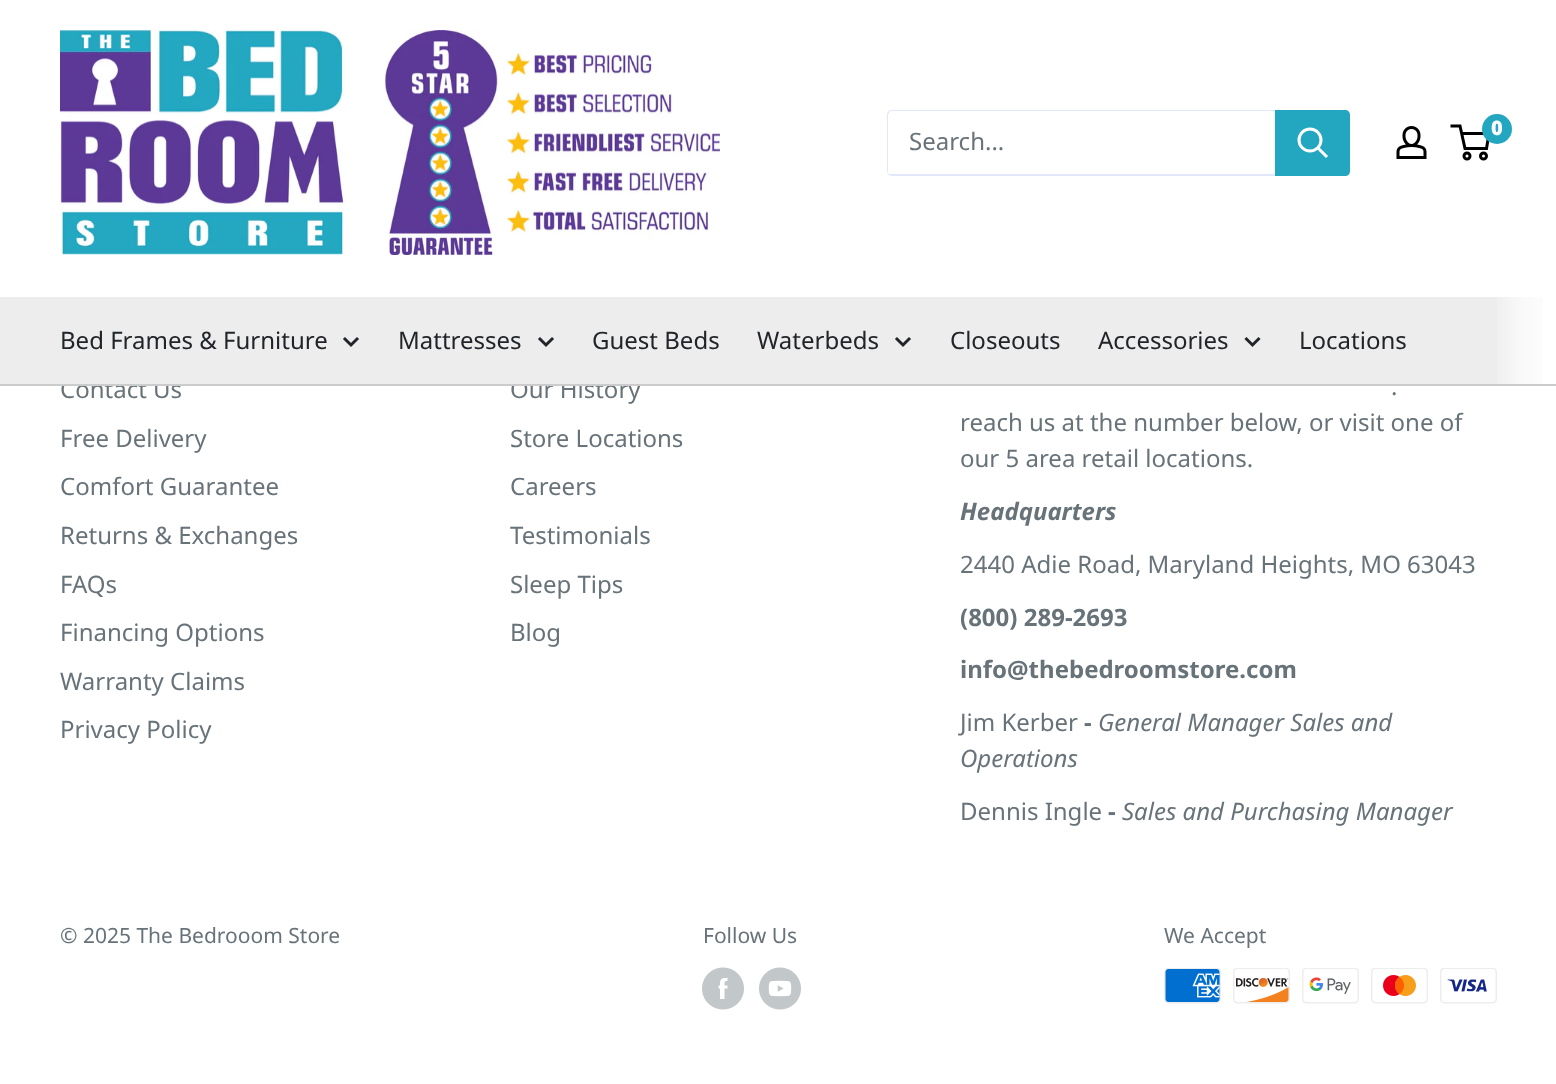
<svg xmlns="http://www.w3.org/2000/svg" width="1556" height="1084">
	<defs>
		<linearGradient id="g1" gradientUnits="userSpaceOnUse" x1="1497" y1="341" x2="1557" y2="341"><stop offset="0" stop-color="#EFEFEF" /><stop offset="0.35" stop-color="#F8F8F8" /><stop offset="1" stop-color="#FFFFFF" /></linearGradient>
	</defs>
	<rect width="100%" height="100%" fill="#FFFFFF" />
	<image x="60" y="30" width="660" height="225" href="assets/img1.png" />
	<image x="1396" y="126" width="31" height="33" href="assets/img2.png" />
	<circle cx="1467" cy="156" r="3" fill="none" stroke="#000000" stroke-width="3" />
	<circle cx="1483.5" cy="156" r="3" fill="none" stroke="#000000" stroke-width="3" />
	<path d="M1461.5 133.5H1489L1486.5 148.5H1465L1460 126H1450.5" fill="none" stroke="#000000" stroke-width="3" />
	<circle cx="1497" cy="129" r="15" fill="#23A7C1" />
	<text x="1491" y="135" font-family="Noto Sans" font-size="20" font-weight="900" fill="#FFFFFF">0</text>
	<path d="M888 174C889 175 890 176 892 176H1332C1335 176 1337 174 1337 171V115C1337 113 1336 112 1335 111V170C1335 172 1333 174 1330 174H890Z" fill="#E3E7FA" />
	<path d="M892 111H1335C1334 110 1333 110 1332 110H892C889 110 887 112 887 115V171C887 172 888 174 889 175L888 172V116C888 113 890 111 892 111Z" fill="#E3E7FA" />
	<text x="909" y="150" font-family="Noto Sans" font-size="24" fill="#677279">Search...</text>
	<path d="M1275 110H1345C1348 110 1350 112 1350 115V171C1350 174 1348 176 1345 176H1275Z" fill="#23A7C1" />
	<path d="M1326 156L1318.5 148.5" fill="none" stroke="#FFFFFF" stroke-width="3" stroke-linecap="square" />
	<circle cx="1310" cy="140" r="11" fill="none" stroke="#FFFFFF" stroke-width="3" />
	<g font-family="Noto Sans" font-size="24" fill="#677279">
		<text x="60" y="398">Contact Us</text>
		<text x="510" y="398">Our History</text>
	</g>
	<rect x="0" y="297" width="1497" height="87" fill="#EDEDED" />
	<rect x="0" y="384" width="1556" height="2" fill="#CCCCCC" />
	<text x="60" y="349" font-family="Noto Sans" font-size="24" fill="#212529">Bed Frames &amp; Furniture</text>
	<path d="M357 339L351 345L345 339" fill="none" stroke="#212529" stroke-width="3" stroke-linecap="square" />
	<text x="398" y="349" font-family="Noto Sans" font-size="24" fill="#212529">Mattresses</text>
	<path d="M552 339L546 345L540 339" fill="none" stroke="#212529" stroke-width="3" stroke-linecap="square" />
	<g font-family="Noto Sans" font-size="24" fill="#212529">
		<text x="592" y="349">Guest Beds</text>
		<text x="757" y="349">Waterbeds</text>
	</g>
	<path d="M909 339L903 345L897 339" fill="none" stroke="#212529" stroke-width="3" stroke-linecap="square" />
	<g font-family="Noto Sans" font-size="24" fill="#212529">
		<text x="950" y="349">Closeouts</text>
		<text x="1098" y="349">Accessories</text>
	</g>
	<path d="M1258.5 339L1252.5 345L1246.5 339" fill="none" stroke="#212529" stroke-width="3" stroke-linecap="square" />
	<text x="1299" y="349" font-family="Noto Sans" font-size="24" fill="#212529">Locations</text>
	<rect x="1497" y="297" width="46" height="87" fill="url(#g1)" />
	<g font-family="Noto Sans" font-size="24" fill="#677279">
		<text x="60" y="447">Free Delivery</text>
		<text x="60" y="495">Comfort Guarantee</text>
		<text x="60" y="544">Returns &amp; Exchanges</text>
		<text x="60" y="593">FAQs</text>
		<text x="60" y="641">Financing Options</text>
		<text x="60" y="690">Warranty Claims</text>
		<text x="60" y="738">Privacy Policy</text>
		<text x="510" y="447">Store Locations</text>
		<text x="510" y="495">Careers</text>
		<text x="510" y="544">Testimonials</text>
		<text x="510" y="593">Sleep Tips</text>
		<text x="510" y="641">Blog</text>
		<text x="1391" y="395">.</text>
		<text x="960" y="431">reach us at the number below, or visit one of</text>
		<text x="960" y="467">our 5 area retail locations.</text>
	</g>
	<text x="960" y="520" font-family="Noto Sans" font-size="24" font-weight="700" font-style="italic" fill="#677279">Headquarters</text>
	<text x="960" y="573" font-family="Noto Sans" font-size="24" fill="#677279">2440 Adie Road, Maryland Heights, MO 63043</text>
	<g font-family="Noto Sans" font-size="24" font-weight="700" fill="#677279">
		<text x="960" y="626">(800) 289-2693</text>
		<text x="960" y="678">info@thebedroomstore.com</text>
	</g>
	<text x="960" y="731" font-family="Noto Sans" font-size="24" fill="#677279">Jim Kerber</text>
	<text x="1084" y="731" font-family="Noto Sans" font-size="24" font-weight="700" fill="#677279">-</text>
	<g font-family="Noto Sans" font-size="24" font-style="italic" fill="#677279">
		<text x="1098" y="731">General Manager Sales and</text>
		<text x="960" y="767">Operations</text>
	</g>
	<text x="960" y="820" font-family="Noto Sans" font-size="24" fill="#677279">Dennis Ingle</text>
	<text x="1108" y="820" font-family="Noto Sans" font-size="24" font-weight="700" fill="#677279">-</text>
	<text x="1122" y="820" font-family="Noto Sans" font-size="24" font-style="italic" fill="#677279">Sales and Purchasing Manager</text>
	<g font-family="Noto Sans" font-size="21" fill="#677279">
		<text x="60" y="943">© 2025 The Bedrooom Store</text>
		<text x="703" y="943">Follow Us</text>
	</g>
	<image x="702" y="967" width="42" height="43" href="assets/img3.png" />
	<image x="759" y="967" width="42" height="43" href="assets/img4.png" />
	<text x="1164" y="943" font-family="Noto Sans" font-size="21" fill="#677279">We Accept</text>
	<image x="1164" y="968" width="57" height="36" href="assets/img5.png" />
	<image x="1233" y="968" width="57" height="36" href="assets/img6.png" />
	<image x="1302" y="968" width="57" height="36" href="assets/img7.png" />
	<image x="1371" y="968" width="57" height="36" href="assets/img8.png" />
	<image x="1440" y="968" width="57" height="36" href="assets/img9.png" />
</svg>
